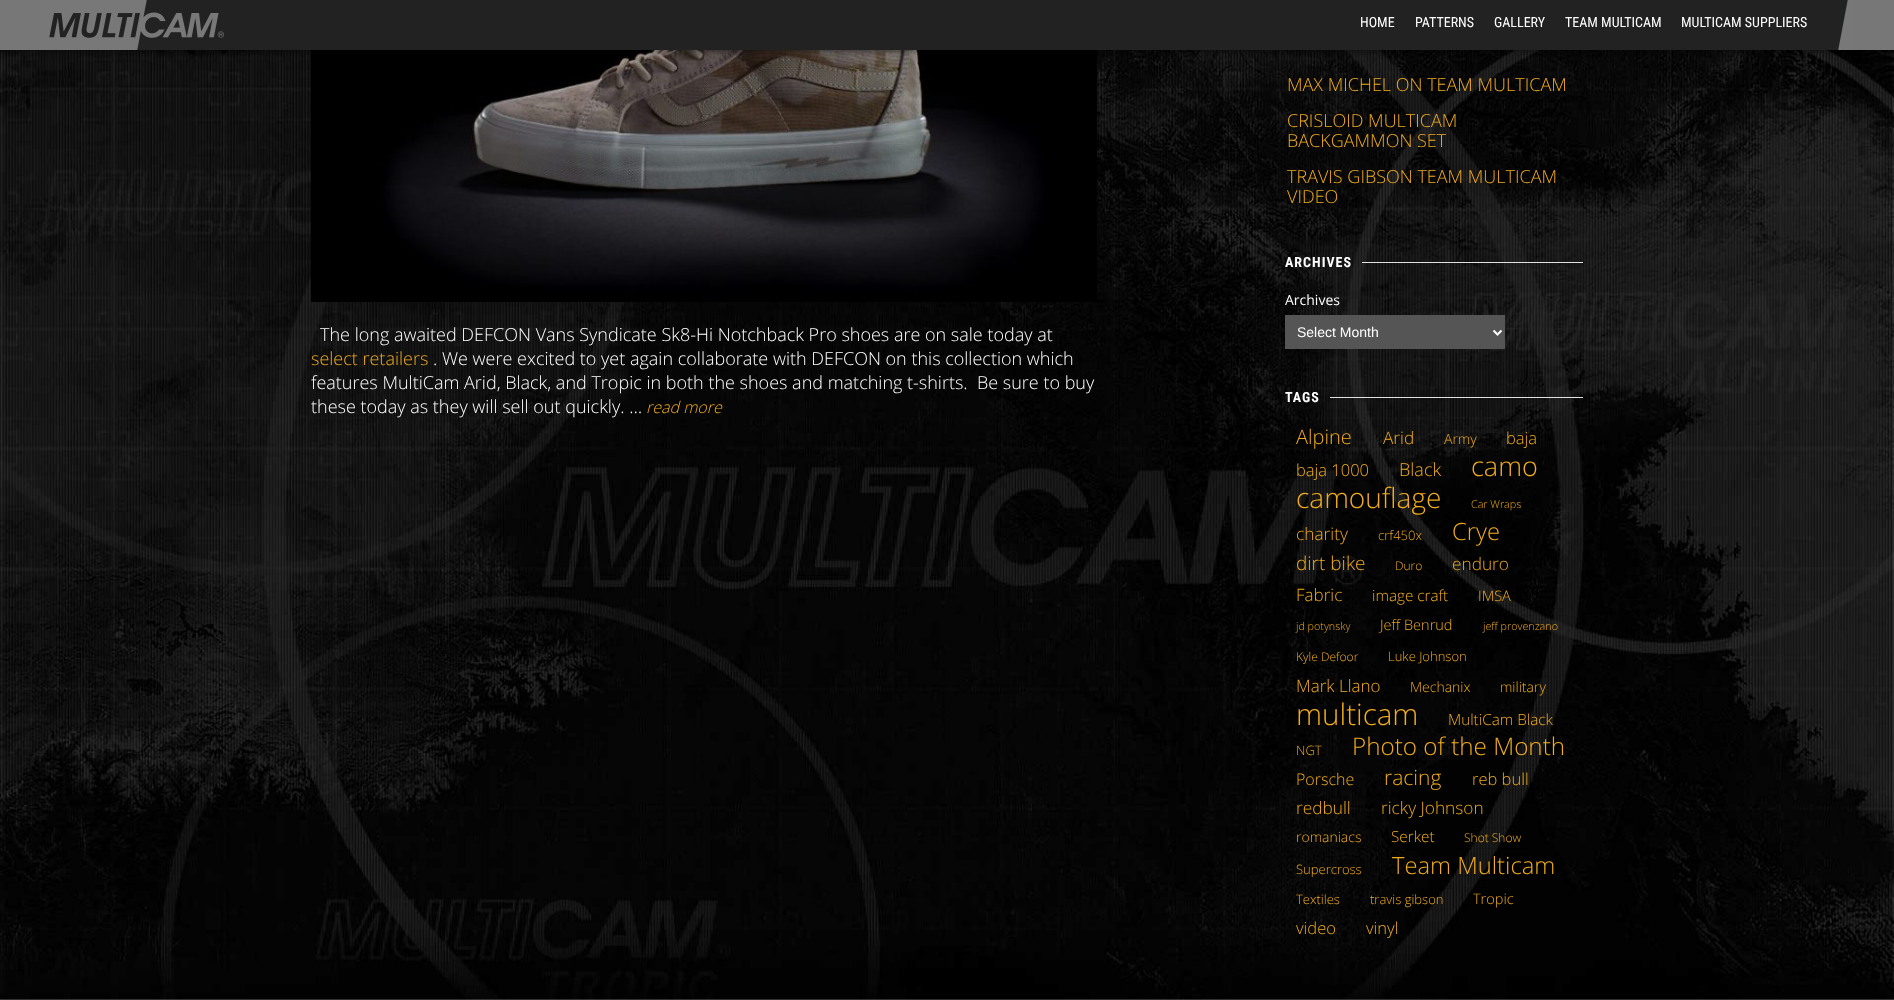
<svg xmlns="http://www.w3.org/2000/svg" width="1894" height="1000">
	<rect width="100%" height="100%" fill="#FFFFFF" />
	<image x="0" y="50" width="1894" height="950" href="assets/img1.png" />
	<image x="311" y="50" width="786" height="252" href="assets/img4.png" />
	<rect x="0" y="1" width="1894" height="50" fill="#000000" fill-opacity="0.5" filter="blur(3px)" />
	<rect x="0" y="0" width="1894" height="50" fill="#777777" />
	<rect x="224" y="0" width="1614" height="50" fill="#222222" />
	<image x="1838" y="0" width="16" height="50" href="assets/img2.png" />
	<image x="40" y="0" width="184" height="50" href="assets/img3.png" />
	<g font-family="Roboto Condensed" font-size="14" fill="#FFFFFF">
		<text x="1360" y="27">HOME</text>
		<text x="1415" y="27">PATTERNS</text>
		<text x="1494" y="27">GALLERY</text>
		<text x="1565" y="27">TEAM MULTICAM</text>
		<text x="1681" y="27">MULTICAM SUPPLIERS</text>
	</g>
	<text x="320" y="341" font-family="Open Sans" font-size="18" font-weight="300" fill="#FFFFFF">The long awaited DEFCON Vans Syndicate Sk8-Hi Notchback Pro shoes are on sale today at</text>
	<text x="311" y="365" font-family="Open Sans" font-size="18" font-weight="300" fill="#F2AC1C">select retailers</text>
	<g font-family="Open Sans" font-size="18" font-weight="300" fill="#FFFFFF">
		<text x="433" y="365">. We were excited to yet again collaborate with DEFCON on this collection which</text>
		<text x="311" y="389" xml:space="preserve">features MultiCam Arid, Black, and Tropic in both the shoes and matching t-shirts.  Be sure to buy</text>
		<text x="311" y="413">these today as they will sell out quickly. …</text>
	</g>
	<text x="646" y="413" font-family="Open Sans" font-size="16" font-weight="300" font-style="italic" fill="#F2AC1C">read more</text>
	<g font-family="Open Sans" font-size="18" font-weight="300" fill="#F2AC1C">
		<text x="1287" y="91">MAX MICHEL ON TEAM MULTICAM</text>
		<text x="1287" y="127">CRISLOID MULTICAM</text>
		<text x="1287" y="147">BACKGAMMON SET</text>
		<text x="1287" y="183">TRAVIS GIBSON TEAM MULTICAM</text>
		<text x="1287" y="203">VIDEO</text>
	</g>
	<text x="1285" y="267" font-family="Roboto Condensed" font-size="14" font-weight="700" letter-spacing="1" fill="#FFFFFF">ARCHIVES</text>
	<rect x="1362" y="262" width="221" height="1" fill="#E1E1E1" />
	<text x="1285" y="305" font-family="Open Sans" font-size="14" fill="#FFFFFF">Archives</text>
	<rect x="1285" y="315" width="220" height="34" fill="#555555" />
	<path d="M1493.5 330.5L1497.5 334.5L1501.5 330.5" fill="none" stroke="#FFFFFF" stroke-width="2" />
	<text x="1297" y="337" font-family="Liberation Sans" font-size="14" fill="#FFFFFF">Select Month</text>
	<text x="1285" y="402" font-family="Roboto Condensed" font-size="14" font-weight="700" letter-spacing="1" fill="#FFFFFF">TAGS</text>
	<rect x="1330" y="397" width="253" height="1" fill="#E1E1E1" />
	<rect x="1285.5" y="425.5" width="78" height="21" fill="none" stroke="#000000" stroke-opacity="0.1" />
	<text x="1296" y="444" font-family="Open Sans" font-size="20" font-weight="300" fill="#F2AC1C">Alpine</text>
	<rect x="1372.5" y="426.5" width="52" height="21" fill="none" stroke="#000000" stroke-opacity="0.1" />
	<text x="1383" y="444" font-family="Open Sans" font-size="17.25" font-weight="300" fill="#F2AC1C">Arid</text>
	<rect x="1433.5" y="428.5" width="53" height="21" fill="none" stroke="#000000" stroke-opacity="0.1" />
	<text x="1444" y="444" font-family="Open Sans" font-size="14" font-weight="300" fill="#F2AC1C">Army</text>
	<rect x="1495.5" y="427.5" width="52" height="21" fill="none" stroke="#000000" stroke-opacity="0.1" />
	<text x="1506" y="444" font-family="Open Sans" font-size="16.5" font-weight="300" fill="#F2AC1C">baja</text>
	<rect x="1285.5" y="459.5" width="94" height="21" fill="none" stroke="#000000" stroke-opacity="0.1" />
	<text x="1296" y="476" font-family="Open Sans" font-size="16.5" font-weight="300" fill="#F2AC1C">baja 1000</text>
	<rect x="1388.5" y="458.5" width="63" height="21" fill="none" stroke="#000000" stroke-opacity="0.1" />
	<text x="1399" y="476" font-family="Open Sans" font-size="18" font-weight="300" fill="#F2AC1C">Black</text>
	<text x="1471" y="476" font-family="Open Sans" font-size="27" font-weight="300" fill="#F2AC1C">camo</text>
	<rect x="1285.5" y="486.5" width="166" height="21" fill="none" stroke="#000000" stroke-opacity="0.1" />
	<text x="1296" y="508" font-family="Open Sans" font-size="28" font-weight="300" fill="#F2AC1C">camouflage</text>
	<text x="1471" y="508" font-family="Open Sans" font-size="10.75" font-weight="300" fill="#F2AC1C">Car Wraps</text>
	<rect x="1285.5" y="522.5" width="74" height="21" fill="none" stroke="#000000" stroke-opacity="0.1" />
	<text x="1296" y="540" font-family="Open Sans" font-size="17.25" font-weight="300" fill="#F2AC1C">charity</text>
	<rect x="1367.5" y="524.5" width="65" height="21" fill="none" stroke="#000000" stroke-opacity="0.1" />
	<text x="1378" y="540" font-family="Open Sans" font-size="13" font-weight="300" fill="#F2AC1C">crf450x</text>
	<text x="1452" y="540" font-family="Open Sans" font-size="23.75" font-weight="300" fill="#F2AC1C">Crye</text>
	<rect x="1285.5" y="552.5" width="91" height="21" fill="none" stroke="#000000" stroke-opacity="0.1" />
	<text x="1296" y="570" font-family="Open Sans" font-size="19" font-weight="300" fill="#F2AC1C">dirt bike</text>
	<text x="1395" y="570" font-family="Open Sans" font-size="12" font-weight="300" fill="#F2AC1C">Duro</text>
	<rect x="1441.5" y="552.5" width="78" height="21" fill="none" stroke="#000000" stroke-opacity="0.1" />
	<text x="1452" y="570" font-family="Open Sans" font-size="17.25" font-weight="300" fill="#F2AC1C">enduro</text>
	<text x="1296" y="601" font-family="Open Sans" font-size="17" font-weight="300" fill="#F2AC1C">Fabric</text>
	<text x="1372" y="601" font-family="Open Sans" font-size="15.25" font-weight="300" fill="#F2AC1C">image craft</text>
	<rect x="1467.5" y="584.5" width="54" height="21" fill="none" stroke="#000000" stroke-opacity="0.1" />
	<text x="1478" y="601" font-family="Open Sans" font-size="14.5" font-weight="300" fill="#F2AC1C">IMSA</text>
	<text x="1296" y="630" font-family="Open Sans" font-size="10.75" font-weight="300" fill="#F2AC1C">jd potynsky</text>
	<text x="1380" y="630" font-family="Open Sans" font-size="14.5" font-weight="300" fill="#F2AC1C">Jeff Benrud</text>
	<rect x="1472.5" y="615.5" width="95" height="21" fill="none" stroke="#000000" stroke-opacity="0.1" />
	<text x="1483" y="630" font-family="Open Sans" font-size="10.75" font-weight="300" fill="#F2AC1C">jeff provenzano</text>
	<text x="1296" y="661" font-family="Open Sans" font-size="12" font-weight="300" fill="#F2AC1C">Kyle Defoor</text>
	<text x="1388" y="661" font-family="Open Sans" font-size="13" font-weight="300" fill="#F2AC1C">Luke Johnson</text>
	<text x="1296" y="692" font-family="Open Sans" font-size="17" font-weight="300" fill="#F2AC1C">Mark Llano</text>
	<text x="1410" y="692" font-family="Open Sans" font-size="14" font-weight="300" fill="#F2AC1C">Mechanix</text>
	<rect x="1489.5" y="676.5" width="67" height="21" fill="none" stroke="#000000" stroke-opacity="0.1" />
	<text x="1500" y="692" font-family="Open Sans" font-size="14" font-weight="300" fill="#F2AC1C">military</text>
	<text x="1296" y="725" font-family="Open Sans" font-size="29.5" font-weight="300" fill="#F2AC1C">multicam</text>
	<rect x="1437.5" y="708.5" width="125" height="21" fill="none" stroke="#000000" stroke-opacity="0.1" />
	<text x="1448" y="725" font-family="Open Sans" font-size="15.25" font-weight="300" fill="#F2AC1C">MultiCam Black</text>
	<text x="1296" y="755" font-family="Open Sans" font-size="13" font-weight="300" fill="#F2AC1C">NGT</text>
	<rect x="1341.5" y="735.5" width="234" height="21" fill="none" stroke="#000000" stroke-opacity="0.1" />
	<text x="1352" y="755" font-family="Open Sans" font-size="24.25" font-weight="300" fill="#F2AC1C">Photo of the Month</text>
	<text x="1296" y="785" font-family="Open Sans" font-size="16" font-weight="300" fill="#F2AC1C">Porsche</text>
	<text x="1384" y="785" font-family="Open Sans" font-size="21" font-weight="300" fill="#F2AC1C">racing</text>
	<rect x="1461.5" y="768.5" width="77" height="21" fill="none" stroke="#000000" stroke-opacity="0.1" />
	<text x="1472" y="785" font-family="Open Sans" font-size="16.5" font-weight="300" fill="#F2AC1C">reb bull</text>
	<text x="1296" y="814" font-family="Open Sans" font-size="17.25" font-weight="300" fill="#F2AC1C">redbull</text>
	<rect x="1370.5" y="796.5" width="124" height="21" fill="none" stroke="#000000" stroke-opacity="0.1" />
	<text x="1381" y="814" font-family="Open Sans" font-size="17.25" font-weight="300" fill="#F2AC1C">ricky Johnson</text>
	<text x="1296" y="842" font-family="Open Sans" font-size="14" font-weight="300" fill="#F2AC1C">romaniacs</text>
	<text x="1391" y="842" font-family="Open Sans" font-size="15.25" font-weight="300" fill="#F2AC1C">Serket</text>
	<rect x="1453.5" y="827.5" width="78" height="21" fill="none" stroke="#000000" stroke-opacity="0.1" />
	<text x="1464" y="842" font-family="Open Sans" font-size="12" font-weight="300" fill="#F2AC1C">Shot Show</text>
	<text x="1296" y="874" font-family="Open Sans" font-size="13" font-weight="300" fill="#F2AC1C">Supercross</text>
	<rect x="1381.5" y="854.5" width="185" height="21" fill="none" stroke="#000000" stroke-opacity="0.1" />
	<text x="1392" y="874" font-family="Open Sans" font-size="23.75" font-weight="300" fill="#F2AC1C">Team Multicam</text>
	<text x="1296" y="904" font-family="Open Sans" font-size="13" font-weight="300" fill="#F2AC1C">Textiles</text>
	<rect x="1359.5" y="888.5" width="94" height="21" fill="none" stroke="#000000" stroke-opacity="0.1" />
	<text x="1370" y="904" font-family="Open Sans" font-size="13" font-weight="300" fill="#F2AC1C">travis gibson</text>
	<rect x="1462.5" y="887.5" width="62" height="21" fill="none" stroke="#000000" stroke-opacity="0.1" />
	<text x="1473" y="904" font-family="Open Sans" font-size="14.5" font-weight="300" fill="#F2AC1C">Tropic</text>
	<rect x="1285.5" y="917.5" width="61" height="21" fill="none" stroke="#000000" stroke-opacity="0.1" />
	<g font-family="Open Sans" font-size="16.5" font-weight="300" fill="#F2AC1C">
		<text x="1296" y="934">video</text>
		<text x="1366" y="934">vinyl</text>
	</g>
</svg>
